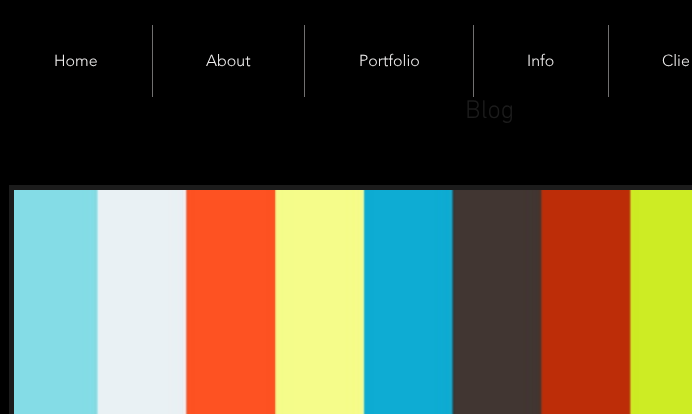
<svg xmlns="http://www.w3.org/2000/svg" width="692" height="414">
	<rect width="100%" height="100%" fill="#000000" />
	<text x="54" y="66" font-family="'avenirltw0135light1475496'" font-size="16" font-weight="300" fill="#F1F0F0">Home</text>
	<rect x="152" y="25" width="1" height="72" fill="#717070" />
	<text x="206" y="66" font-family="'avenirltw0135light1475496'" font-size="16" font-weight="300" fill="#F1F0F0">About</text>
	<rect x="304" y="25" width="1" height="72" fill="#717070" />
	<text x="359" y="66" font-family="'avenirltw0135light1475496'" font-size="16" font-weight="300" fill="#F1F0F0">Portfolio</text>
	<rect x="473" y="25" width="1" height="72" fill="#717070" />
	<text x="527" y="66" font-family="'avenirltw0135light1475496'" font-size="16" font-weight="300" fill="#F1F0F0">Info</text>
	<rect x="608" y="25" width="1" height="72" fill="#717070" />
	<text x="662" y="66" font-family="'avenirltw0135light1475496'" font-size="16" font-weight="300" fill="#F1F0F0">Clie</text>
	<text x="465" y="118" font-family="'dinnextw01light'" font-size="26" font-weight="300" fill="#1C1C1C">Blog</text>
	<rect x="11.5" y="187.5" width="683" height="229" fill="none" stroke="#1C1C1C" stroke-width="5" />
	<image x="14" y="190" width="678" height="224" href="assets/img1.png" />
</svg>
